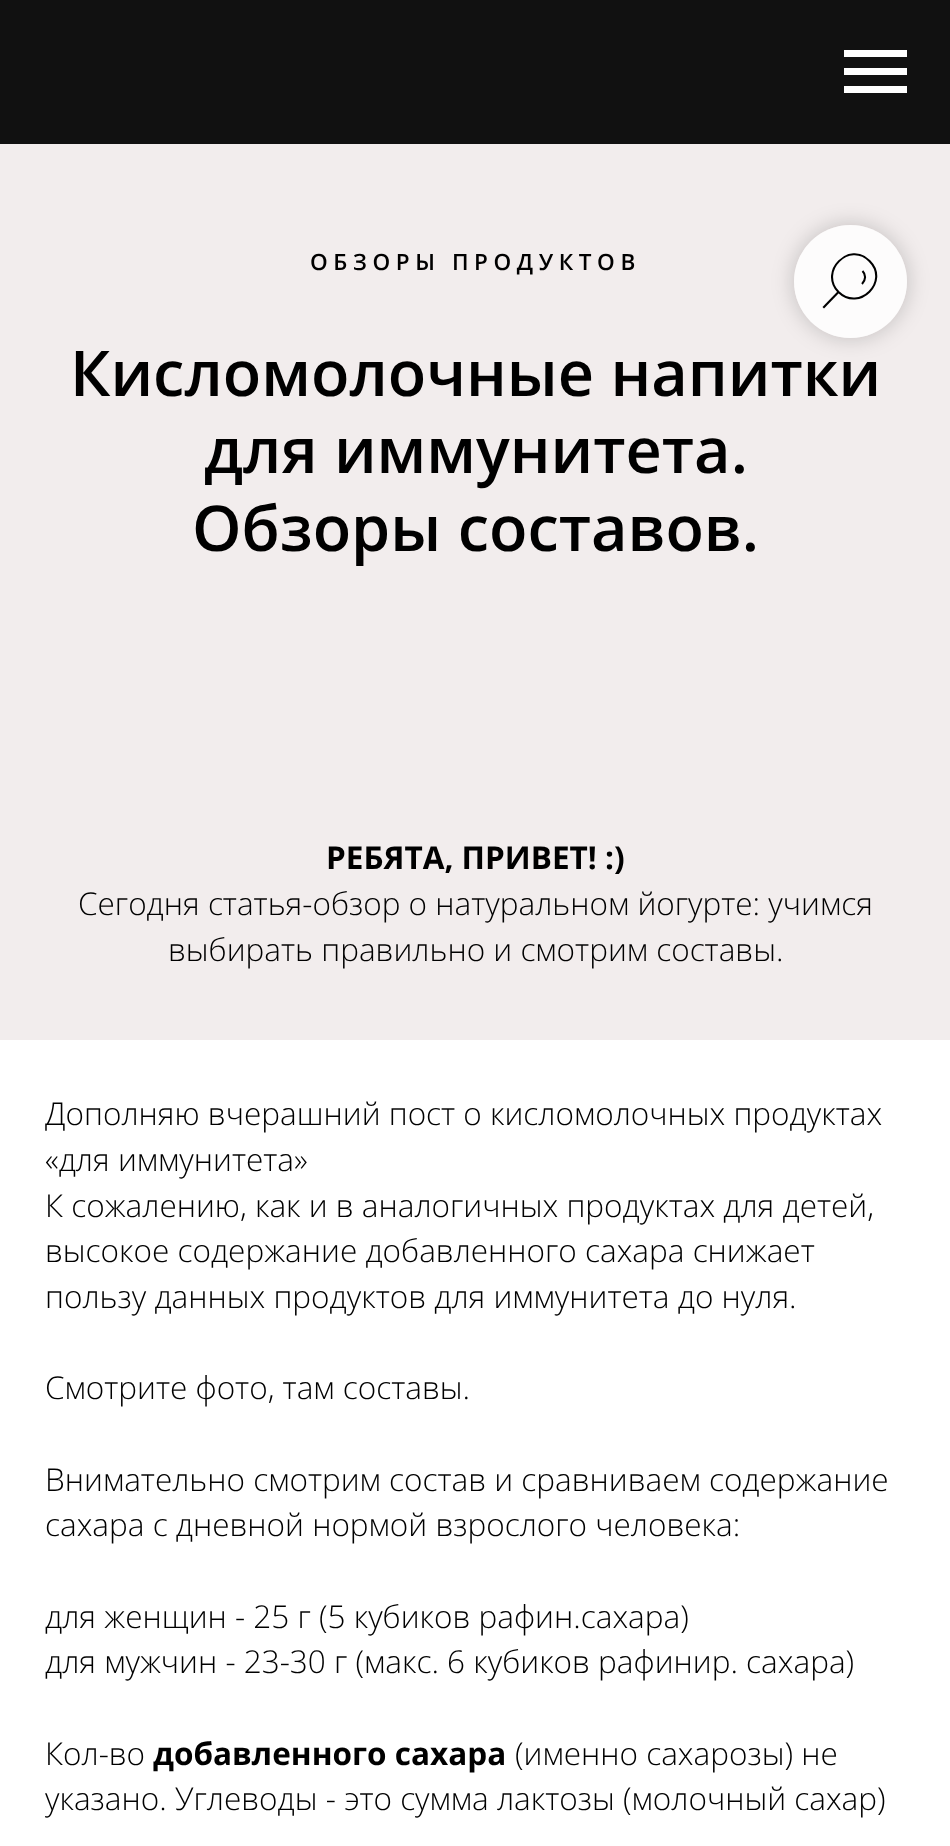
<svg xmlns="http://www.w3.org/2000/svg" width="950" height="1846">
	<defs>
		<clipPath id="clip1"><path d="M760 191H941V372H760ZM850.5 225C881.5 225 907 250.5 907 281.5C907 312.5 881.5 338 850.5 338C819.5 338 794 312.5 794 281.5C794 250.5 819.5 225 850.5 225Z" clip-rule="evenodd" /></clipPath>
	</defs>
	<rect width="100%" height="100%" fill="#FFFFFF" />
	<rect x="0" y="0" width="950" height="144" fill="#111111" />
	<rect x="844" y="50" width="63" height="7" fill="#FFFFFF" />
	<rect x="844" y="68" width="63" height="7" fill="#FFFFFF" />
	<rect x="844" y="86" width="63" height="7" fill="#FFFFFF" />
	<rect x="0" y="144" width="950" height="896" fill="#F2EDED" />
	<g clip-path="url(#clip1)">
		<rect x="794" y="225" width="113" height="113" rx="56.5" fill="#000000" fill-opacity="0.2" filter="blur(11px)" />
	</g>
	<circle cx="850.5" cy="281.5" r="56.5" fill="#FFFFFF" fill-opacity="0.8" />
	<path d="M838 292.5L824 307" fill="none" stroke="#000000" stroke-width="2.1" stroke-linecap="square" />
	<path d="M869.5 261C890 281.5 859 312 838.5 292C818.5 271.5 849.5 240.5 869.5 261ZM862.5 271C866 274.5 866 280 862 284" fill="none" stroke="#000000" stroke-width="2.1" />
	<text x="310" y="270" font-family="Open Sans" font-size="22.5" font-weight="600" letter-spacing="5.6" fill="#000000">ОБЗОРЫ ПРОДУКТОВ</text>
	<g font-family="Open Sans" font-size="63" font-weight="600" fill="#000000">
		<text x="70" y="396">Кисломолочные напитки</text>
		<text x="204" y="473">для иммунитета.</text>
		<text x="192" y="551">Обзоры составов.</text>
	</g>
	<text x="326" y="869" font-family="Open Sans" font-size="31.5" font-weight="700" fill="#000000">РЕБЯТА, ПРИВЕТ! :)</text>
	<g font-family="Open Sans" font-size="31.5" font-weight="300" fill="#000000">
		<text x="78" y="915">Сегодня статья-обзор о натуральном йогурте: учимся</text>
		<text x="168" y="961">выбирать правильно и смотрим составы.</text>
		<text x="45" y="1125">Дополняю вчерашний пост о кисломолочных продуктах</text>
		<text x="45" y="1171">«для иммунитета»</text>
		<text x="45" y="1217">К сожалению, как и в аналогичных продуктах для детей,</text>
		<text x="45" y="1262">высокое содержание добавленного сахара снижает</text>
		<text x="45" y="1308">пользу данных продуктов для иммунитета до нуля.</text>
		<text x="45" y="1399">Смотрите фото, там составы.</text>
		<text x="45" y="1491">Внимательно смотрим состав и сравниваем содержание</text>
		<text x="45" y="1536">сахара с дневной нормой взрослого человека:</text>
		<text x="45" y="1628">для женщин - 25 г (5 кубиков рафин.сахара)</text>
		<text x="45" y="1673">для мужчин - 23-30 г (макс. 6 кубиков рафинир. сахара)</text>
		<text x="45" y="1765">Кол-во</text>
	</g>
	<text x="153" y="1765" font-family="Open Sans" font-size="31.5" font-weight="700" fill="#000000">добавленного сахара</text>
	<g font-family="Open Sans" font-size="31.5" font-weight="300" fill="#000000">
		<text x="515" y="1765">(именно сахарозы) не</text>
		<text x="45" y="1810">указано. Углеводы - это сумма лактозы (молочный сахар)</text>
	</g>
</svg>
